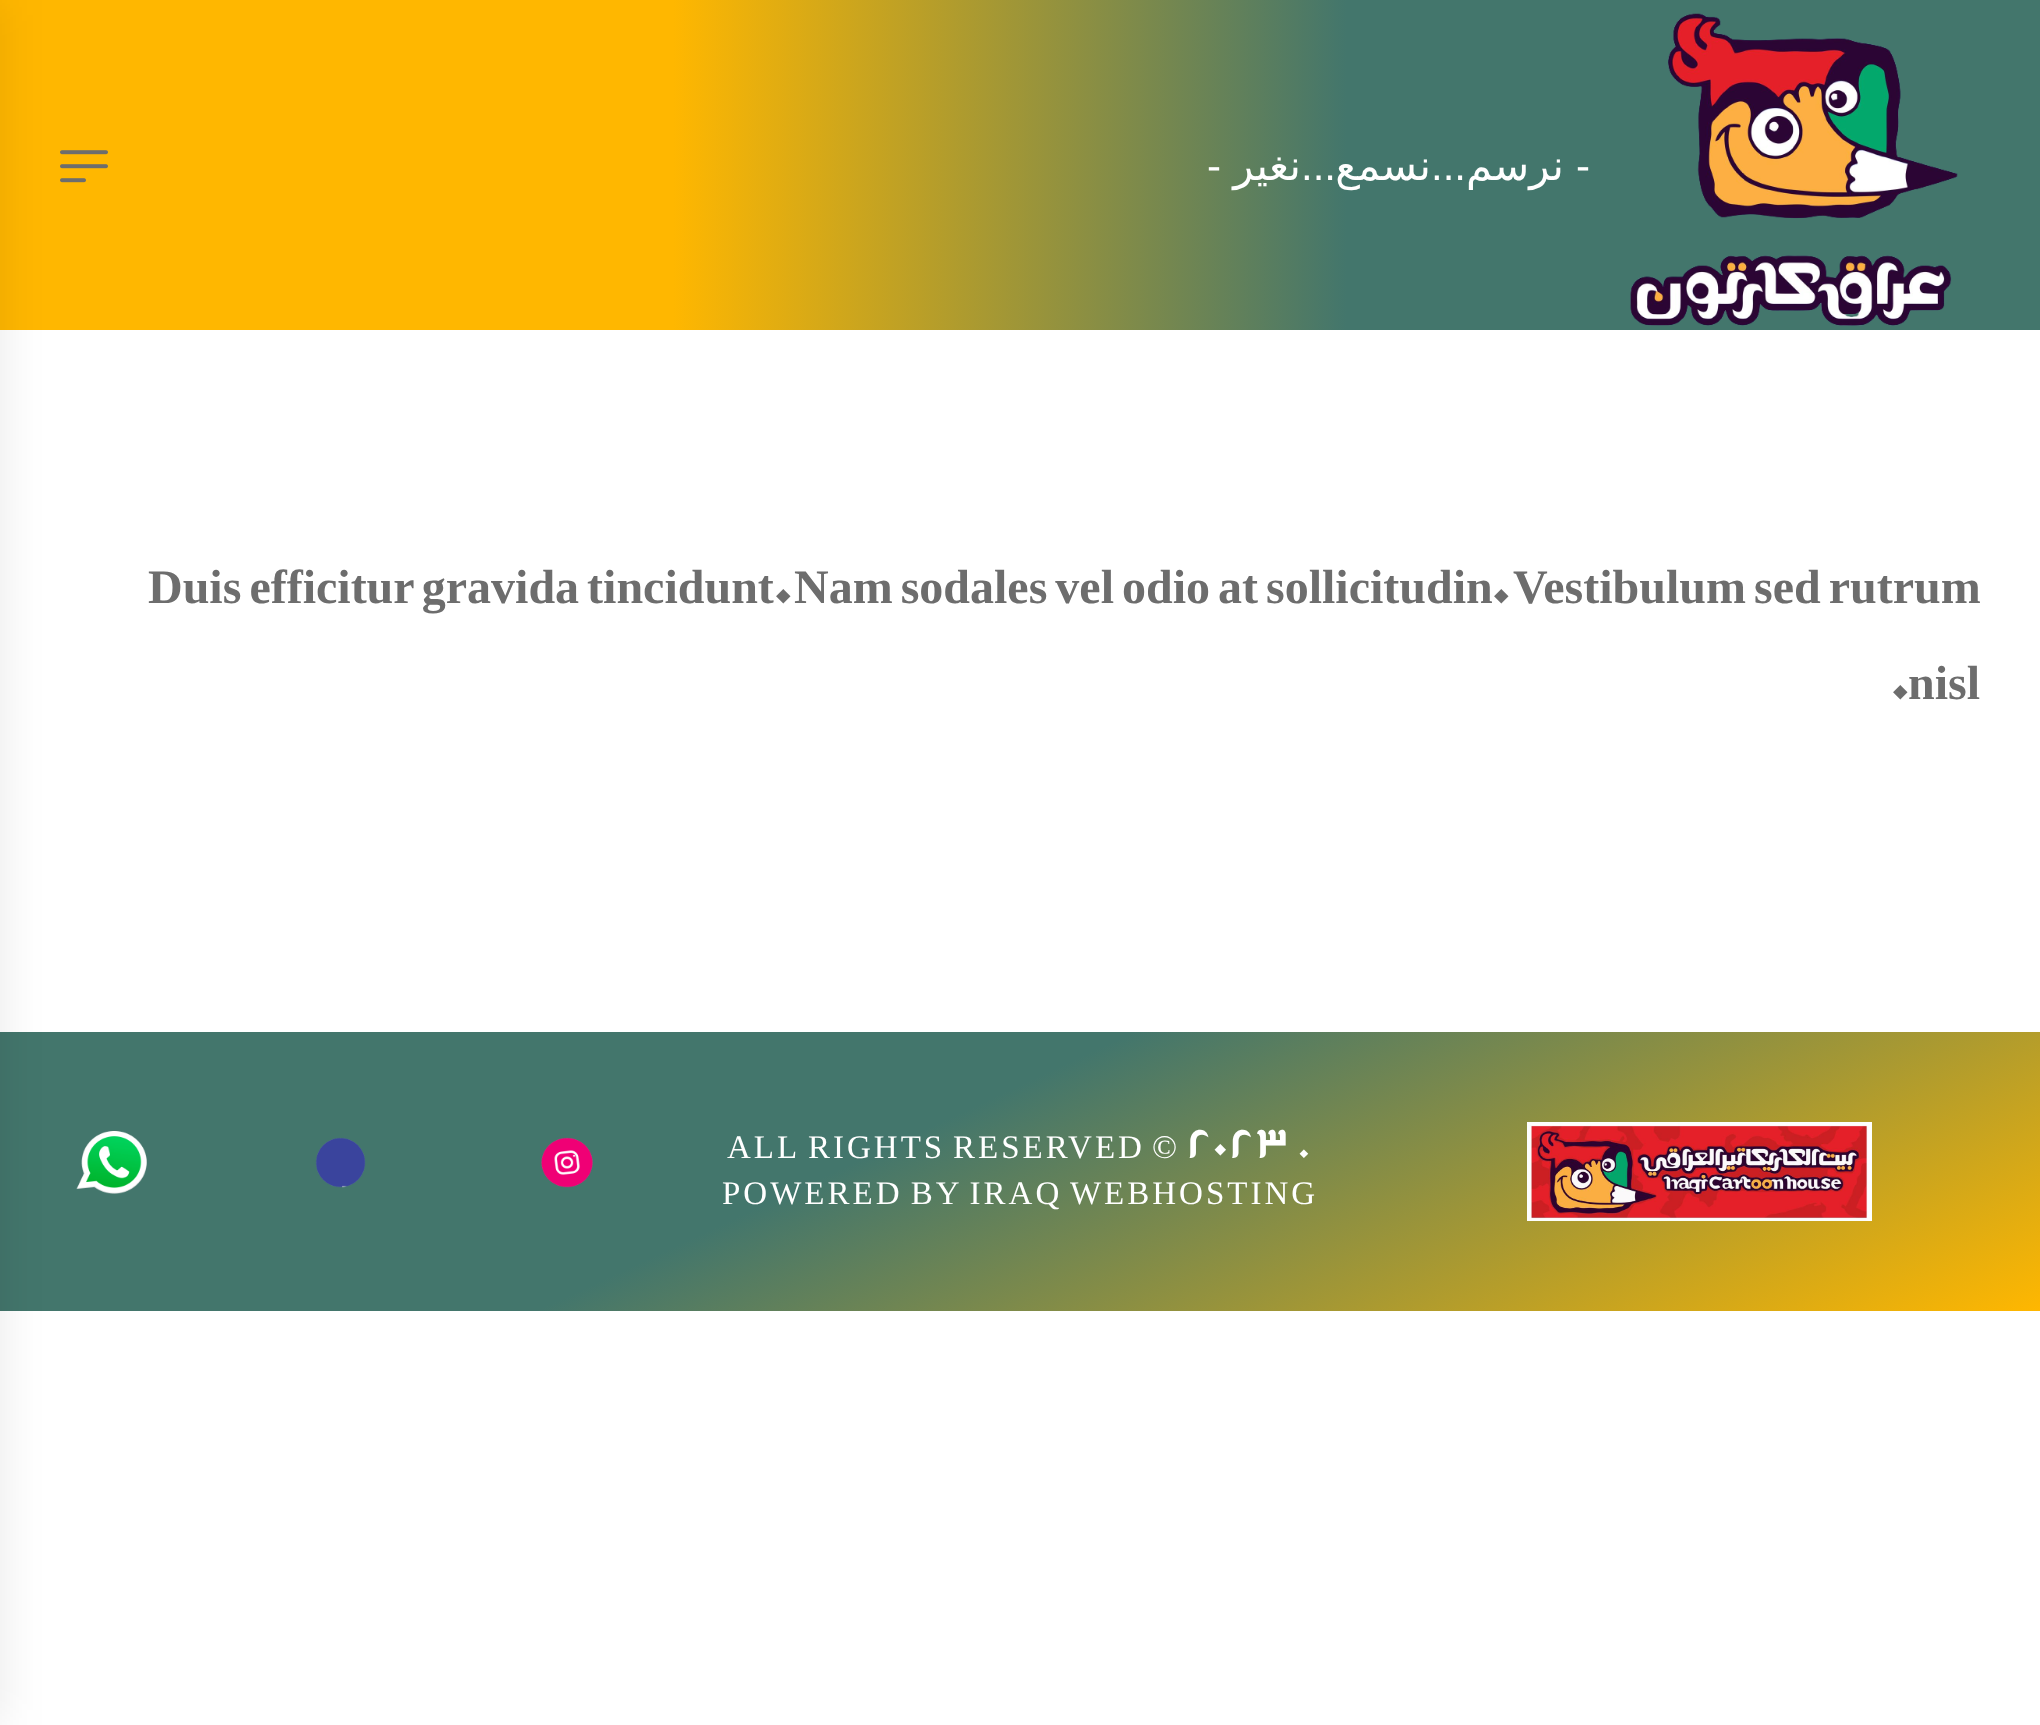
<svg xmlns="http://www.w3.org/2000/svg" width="2040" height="1725">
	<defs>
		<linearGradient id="g1" gradientUnits="userSpaceOnUse" x1="0" y1="165" x2="2040" y2="165"><stop offset="0" stop-color="#FFB700" /><stop offset="0.33" stop-color="#FFB700" /><stop offset="0.66" stop-color="#43766C" /><stop offset="1" stop-color="#43766C" /></linearGradient>
		<linearGradient id="g2" gradientUnits="userSpaceOnUse" x1="784" y1="666" x2="1256" y2="1677"><stop offset="0.43" stop-color="#43766C" /><stop offset="1" stop-color="#FFB700" /></linearGradient>
	</defs>
	<rect width="100%" height="100%" fill="#FFFFFF" />
	<rect x="0" y="0" width="2040" height="330" fill="url(#g1)" />
	<image x="60" y="150" width="48" height="33" href="assets/img1.png" />
	<rect x="0" y="1032" width="2040" height="279" fill="url(#g2)" />
	<rect x="-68" y="0" width="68" height="1725" fill="#000000" fill-opacity="0.09" filter="blur(22.5px)" />
	<text x="1221" y="180" font-family="Liberation Sans" font-size="42" direction="rtl" fill="#FFFFFF">-</text>
	<g font-family="DejaVu Sans" font-size="42" direction="rtl" fill="#FFFFFF">
		<text x="1301" y="180">نغير</text>
		<text x="1431" y="180">نسمع</text>
		<text x="1564" y="180">نرسم</text>
	</g>
	<g font-family="Liberation Sans" font-size="42" direction="rtl" fill="#FFFFFF">
		<text x="1590" y="180">-</text>
		<text x="1336" y="180">...</text>
		<text x="1466" y="180">...</text>
	</g>
	<image x="1630" y="13" width="328" height="313" href="assets/img2.png" />
	<text x="148" y="603" word-spacing="-4" font-family="Liberation Serif" font-size="48" font-weight="700" fill="#6D6D6D">Duis efficitur gravida tincidunt</text>
	<text x="774" y="603" font-family="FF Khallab" font-size="48" font-weight="700" fill="#6D6D6D">.</text>
	<text x="794" y="603" word-spacing="-4" font-family="Liberation Serif" font-size="48" font-weight="700" fill="#6D6D6D">Nam sodales vel odio at sollicitudin</text>
	<text x="1492" y="603" font-family="FF Khallab" font-size="48" font-weight="700" fill="#6D6D6D">.</text>
	<text x="1513" y="603" word-spacing="-4" font-family="Liberation Serif" font-size="48" font-weight="700" fill="#6D6D6D">Vestibulum sed rutrum</text>
	<text x="1891" y="699" font-family="FF Khallab" font-size="48" font-weight="700" fill="#6D6D6D">.</text>
	<text x="1908" y="699" font-family="Liberation Serif" font-size="48" font-weight="700" fill="#6D6D6D">nisl</text>
	<image x="76" y="1131" width="71" height="63" href="assets/img3.png" />
	<image x="315" y="1137" width="51" height="51" href="assets/img4.png" />
	<image x="541" y="1137" width="52" height="51" href="assets/img5.png" />
	<g font-family="Liberation Serif" font-size="33" letter-spacing="3" fill="#FFFFFF">
		<text x="727" y="1158">ALL</text>
		<text x="808" y="1158">RIGHTS</text>
		<text x="953" y="1158">RESERVED</text>
		<text x="1152" y="1158">©</text>
	</g>
	<text x="1188" y="1158" font-family="FF Khallab" font-size="33" letter-spacing="3" fill="#FFFFFF">2023 .</text>
	<text x="722" y="1204" word-spacing="-3" font-family="Liberation Serif" font-size="33" letter-spacing="3" fill="#FFFFFF">POWERED BY IRAQ WEBHOSTING</text>
	<image x="1527" y="1122" width="345" height="99" href="assets/img6.png" />
</svg>
